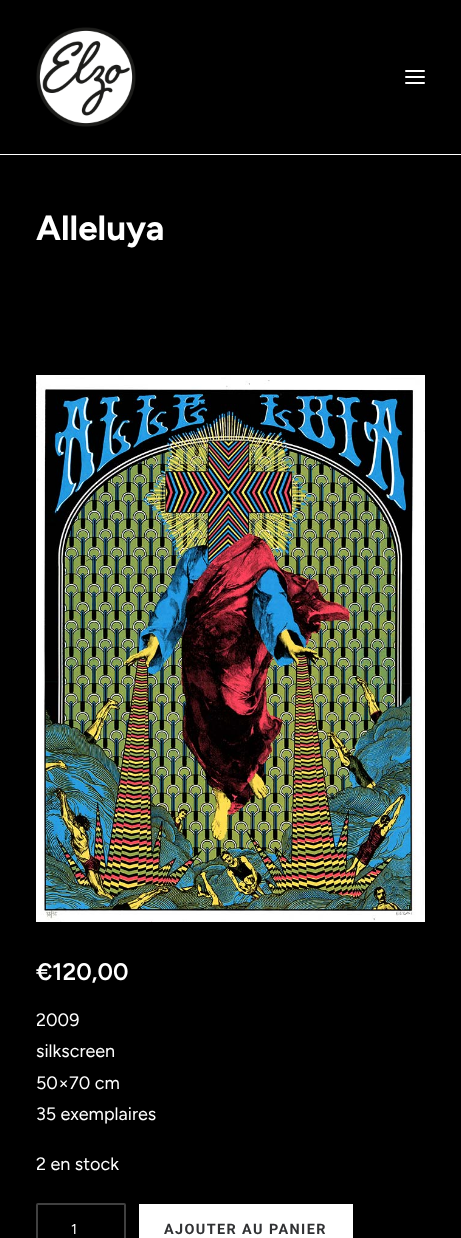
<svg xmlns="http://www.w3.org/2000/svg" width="461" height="1238">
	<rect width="100%" height="100%" fill="#000000" />
	<rect x="0" y="154" width="461" height="1" fill="#FFFFFF" />
	<image x="36" y="27" width="100" height="100" href="assets/img1.png" />
	<rect x="405" y="76" width="20" height="2" rx="1" fill="#FFFFFF" />
	<rect x="405" y="70" width="20" height="2" rx="1" fill="#FFFFFF" />
	<rect x="405" y="82" width="20" height="2" rx="1" fill="#FFFFFF" />
	<text x="36" y="240" font-family="Figtree" font-size="35" font-weight="700" fill="#FFFFFF">Alleluya</text>
	<image x="36" y="375" width="389" height="547" href="assets/img2.png" />
	<text x="36" y="980" font-family="Figtree" font-size="24" font-weight="600" fill="#FFFFFF">€120,00</text>
	<g font-family="Figtree" font-size="18" fill="#FFFFFF">
		<text x="36" y="1026">2009</text>
		<text x="36" y="1057">silkscreen</text>
		<text x="36" y="1089">50×70 cm</text>
		<text x="36" y="1120">35 exemplaires</text>
		<text x="36" y="1170">2 en stock</text>
	</g>
	<rect x="37" y="1204" width="88" height="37" rx="1" fill="none" stroke="#404040" stroke-width="2" />
	<text x="71" y="1234" font-family="Figtree" font-size="14.4" fill="#FFFFFF">1</text>
	<rect x="139" y="1204" width="214" height="34" fill="#FFFFFF" />
	<text x="164" y="1234" font-family="Roboto" font-size="14.4" font-weight="700" letter-spacing="1.4" fill="#303133">AJOUTER AU PANIER</text>
</svg>
